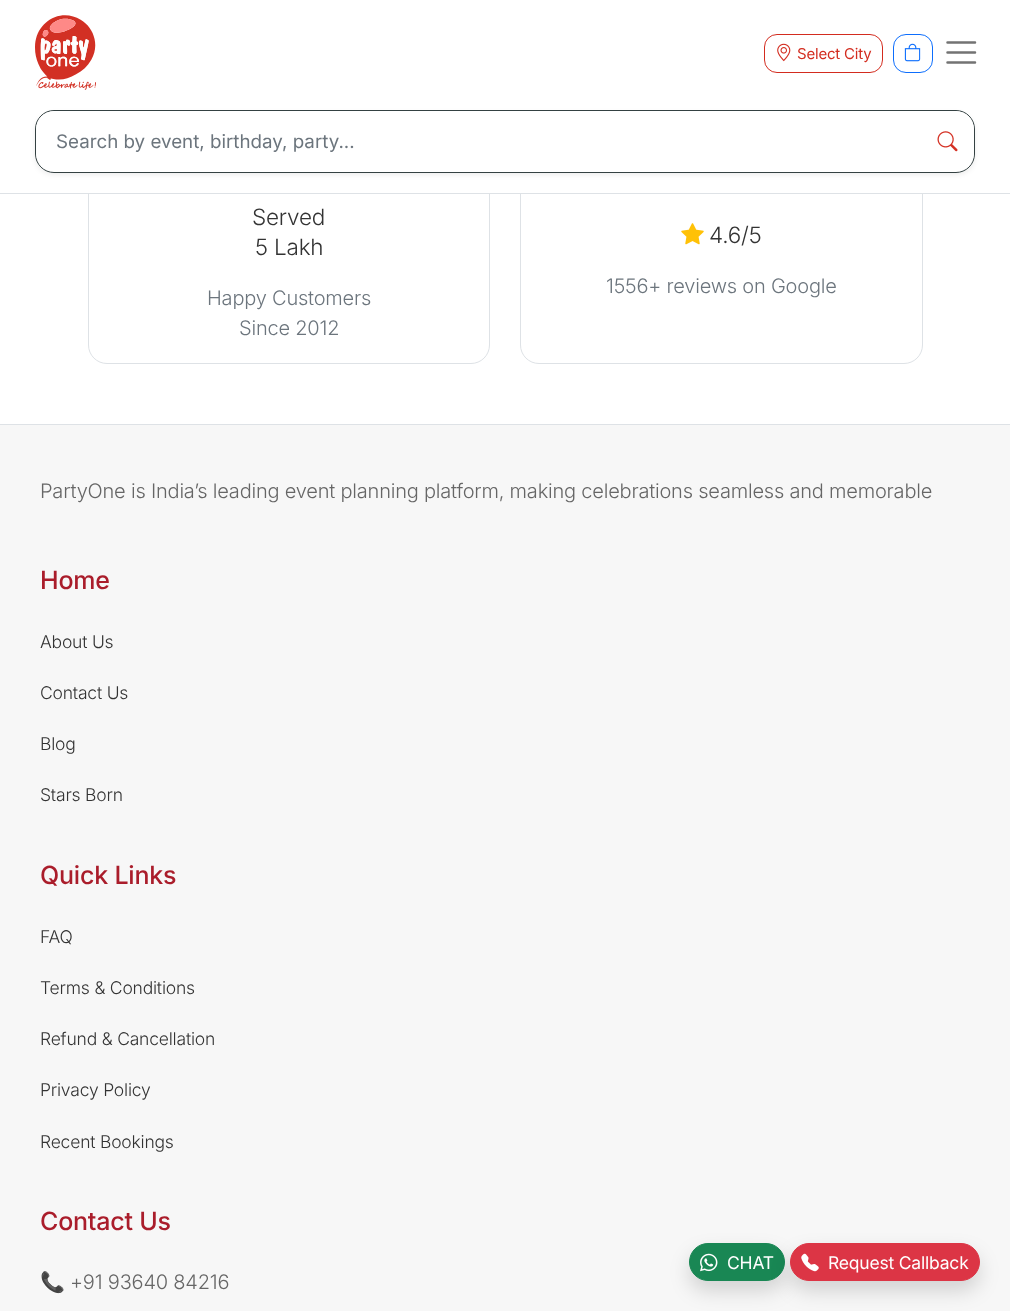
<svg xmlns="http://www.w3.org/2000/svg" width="1010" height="1311">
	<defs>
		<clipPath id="clip1"><path d="M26 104H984V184H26ZM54 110H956C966.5 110 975 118.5 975 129V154C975 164.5 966.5 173 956 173H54C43.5 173 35 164.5 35 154V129C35 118.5 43.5 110 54 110Z" clip-rule="evenodd" /></clipPath>
	</defs>
	<rect width="100%" height="100%" fill="#FFFFFF" />
	<rect x="88.5" y="86.5" width="401" height="277" rx="18.5" fill="none" stroke="#DEE2E6" />
	<rect x="520.5" y="86.5" width="402" height="277" rx="18.5" fill="none" stroke="#DEE2E6" />
	<rect x="88" y="86" width="835" height="107" fill="#FFFFFF" />
	<rect x="0" y="193" width="1010" height="1" fill="#DEE2E6" />
	<image x="35" y="15" width="61" height="75" href="assets/img1.png" />
	<rect x="764.5" y="34.5" width="118" height="38" rx="12.5" fill="none" stroke="#D32C1F" />
	<image x="777" y="43" width="14" height="19" href="assets/img2.png" />
	<text x="797" y="59" font-family="Inter" font-size="15" letter-spacing="-0.2" fill="#D32C1F">Select City</text>
	<rect x="893.5" y="34.5" width="39" height="38" rx="12.5" fill="none" stroke="#0D6EFD" />
	<image x="904" y="43" width="17" height="19" href="assets/img3.png" />
	<path d="M947.5 42.5H975M947.5 52.5H975M947.5 62.5H975" fill="none" stroke="#737373" stroke-width="2.5" stroke-linecap="round" />
	<g clip-path="url(#clip1)">
		<rect x="35" y="113" width="940" height="62" rx="19" fill="#000000" fill-opacity="0.07" filter="blur(2.5px)" />
	</g>
	<rect x="35.5" y="110.5" width="939" height="62" rx="18.5" fill="none" stroke="#344142" />
	<path d="M55 111H923V171H55C44.5 171 36 162.5 36 152V130C36 119.5 44.5 111 55 111Z" fill="#FFFFFF" />
	<text x="56" y="148" font-family="Inter" font-size="18.75" fill="#6C757D">Search by event, birthday, party...</text>
	<path d="M921 111H955C965.5 111 974 119.5 974 130V152C974 162.5 965.5 171 955 171H921Z" fill="#FFFFFF" />
	<image x="937" y="131" width="21" height="21" href="assets/img4.png" />
	<g font-family="Inter" font-size="22.5" font-weight="300" letter-spacing="-0.2" fill="#333333">
		<text x="252" y="225">Served</text>
		<text x="255" y="255">5 Lakh</text>
	</g>
	<g font-family="Inter" font-size="20" font-weight="300" letter-spacing="-0.2" fill="#6C757D">
		<text x="207" y="305">Happy Customers</text>
		<text x="239" y="335">Since 2012</text>
	</g>
	<image x="681" y="223" width="23" height="22" href="assets/img5.png" />
	<text x="709" y="243" font-family="Inter" font-size="22.5" font-weight="300" letter-spacing="-0.2" fill="#333333">4.6/5</text>
	<text x="606" y="293" font-family="Inter" font-size="20" font-weight="300" letter-spacing="-0.2" fill="#6C757D">1556+ reviews on Google</text>
	<rect x="0" y="425" width="1010" height="886" fill="#F7F7F7" />
	<rect x="0" y="424" width="1010" height="1" fill="#DEE2E6" />
	<text x="40" y="498" font-family="Inter" font-size="20" font-weight="300" letter-spacing="-0.2" fill="#666666">PartyOne is India’s leading event planning platform, making celebrations seamless and memorable</text>
	<text x="40" y="589" font-family="Inter" font-size="25" font-weight="500" letter-spacing="-0.2" fill="#AA1D2B">Home</text>
	<g font-family="Inter" font-size="17.5" font-weight="300" letter-spacing="-0.2" fill="#333333">
		<text x="40" y="648">About Us</text>
		<text x="40" y="699">Contact Us</text>
		<text x="40" y="750">Blog</text>
		<text x="40" y="801">Stars Born</text>
	</g>
	<text x="40" y="884" font-family="Inter" font-size="25" font-weight="500" letter-spacing="-0.2" fill="#AA1D2B">Quick Links</text>
	<g font-family="Inter" font-size="17.5" font-weight="300" letter-spacing="-0.2" fill="#333333">
		<text x="40" y="943">FAQ</text>
		<text x="40" y="994">Terms &amp; Conditions</text>
		<text x="40" y="1045">Refund &amp; Cancellation</text>
		<text x="40" y="1096">Privacy Policy</text>
		<text x="40" y="1148">Recent Bookings</text>
	</g>
	<text x="40" y="1230" font-family="Inter" font-size="25" font-weight="500" letter-spacing="-0.2" fill="#AA1D2B">Contact Us</text>
	<text x="40" y="1289" font-family="Noto Color Emoji" font-size="20" letter-spacing="-0.2" fill="#666666">📞</text>
	<text x="70" y="1289" font-family="Inter" font-size="20" font-weight="300" letter-spacing="-0.2" fill="#666666">+91 93640 84216</text>
	<rect x="689" y="1253" width="96" height="38" rx="19" fill="#000000" fill-opacity="0.15" filter="blur(10px)" />
	<rect x="689.5" y="1243.5" width="95" height="37" rx="18.5" fill="#198754" stroke="#198754" />
	<image x="700" y="1253" width="18" height="19" href="assets/img6.png" />
	<text x="727" y="1269" font-family="Inter" font-size="17.5" letter-spacing="-0.2" fill="#FFFFFF">CHAT</text>
	<rect x="790" y="1253" width="190" height="38" rx="19" fill="#000000" fill-opacity="0.15" filter="blur(10px)" />
	<rect x="790.5" y="1243.5" width="189" height="37" rx="18.5" fill="#DC3545" stroke="#DC3545" />
	<image x="801" y="1253" width="18" height="19" href="assets/img7.png" />
	<text x="828" y="1269" font-family="Inter" font-size="17.5" letter-spacing="-0.2" fill="#FFFFFF">Request Callback</text>
</svg>
